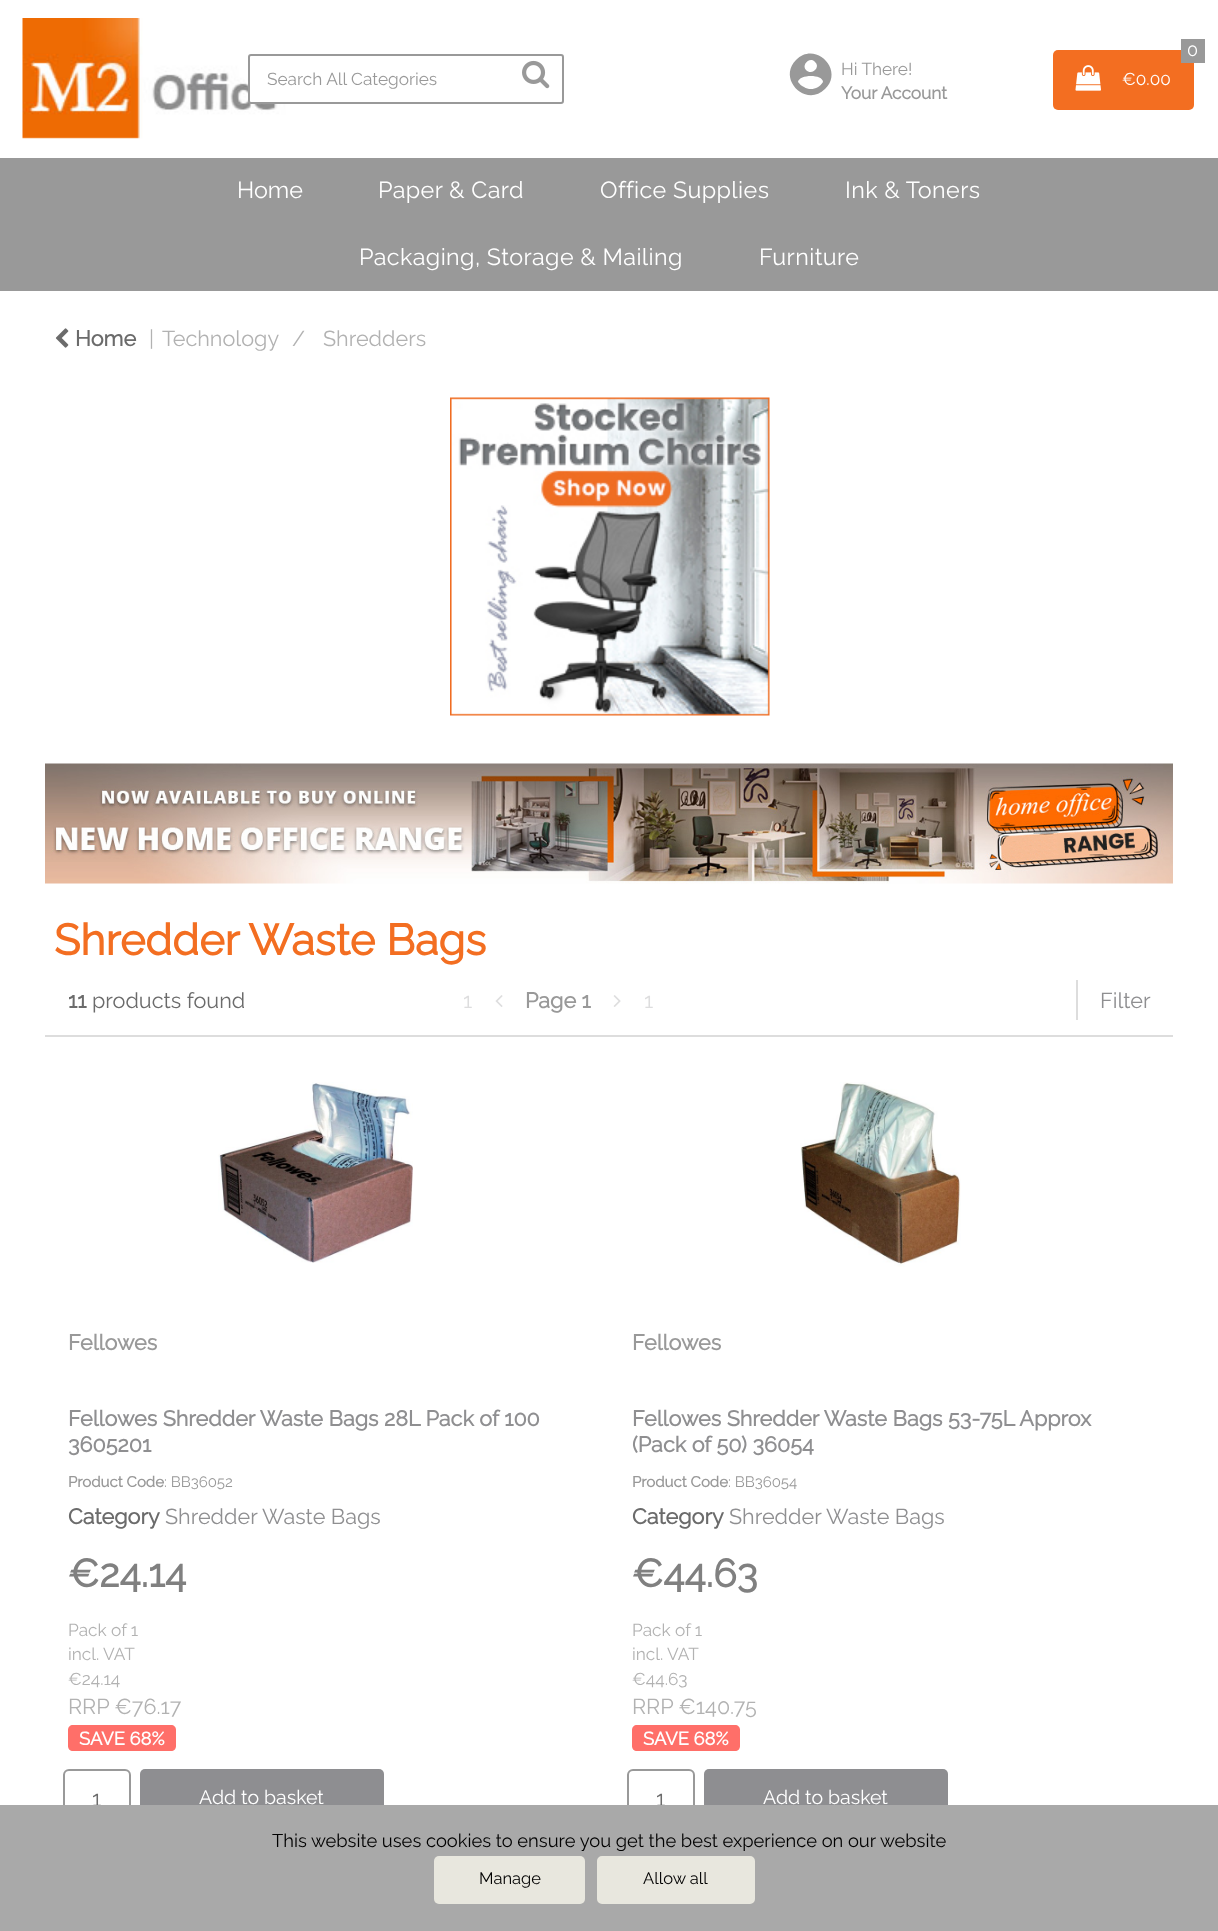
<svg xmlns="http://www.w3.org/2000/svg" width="1218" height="1931">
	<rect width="100%" height="100%" fill="#FFFFFF" />
	<image x="22" y="18" width="264" height="121" href="assets/img1.png" />
	<rect x="249" y="55" width="314" height="48" rx="2" fill="#FFFFFF" stroke="#999999" stroke-width="2" />
	<text x="267" y="85" font-family="Raleway" font-size="17.25" font-weight="100" fill="#999999">Search All Categories</text>
	<image x="522" y="60" width="28" height="29" href="assets/img2.png" />
	<path d="M804 87C810 91 819 89 823 82C823 74 799 74 798 82C800 84 801 86 804 87ZM815 62C810 56 801 65 806 70C812 76 821 67 815 62ZM796 60C815 40 845 70 825 89C806 108 777 79 796 60Z" fill="#999999" />
	<text x="841" y="75" font-family="Raleway" font-size="17.25" font-weight="100" fill="#999999">Hi There!</text>
	<text x="841" y="99" font-family="Raleway" font-size="17.25" font-weight="700" fill="#999999">Your Account</text>
	<rect x="1053" y="50" width="141" height="60" rx="5" fill="#F36E21" />
	<rect x="1181" y="39" width="24" height="24" fill="#999999" />
	<text x="1187" y="56" font-family="Raleway" font-size="18" font-weight="100" fill="#FFFFFF">0</text>
	<image x="1075" y="65" width="26" height="26" href="assets/img3.png" />
	<text x="1122" y="85" font-family="Raleway" font-size="17.25" font-weight="100" fill="#FFFFFF">€0.00</text>
	<rect x="0" y="158" width="1218" height="133" fill="#999999" />
	<text x="237" y="198" font-family="Raleway" font-size="23.3" font-weight="100" fill="#FFFFFF">Home</text>
	<g font-family="Raleway" font-size="23.3" font-weight="100" letter-spacing="0.4" fill="#FFFFFF">
		<text x="378" y="198">Paper &amp; Card</text>
		<text x="600" y="198">Office Supplies</text>
		<text x="845" y="198">Ink &amp; Toners</text>
		<text x="359" y="265">Packaging, Storage &amp; Mailing</text>
		<text x="759" y="265">Furniture</text>
	</g>
	<image x="55" y="328" width="14" height="20" href="assets/img4.png" />
	<text x="75" y="346" font-family="Raleway" font-size="21.6" font-weight="700" fill="#6B6B6B">Home</text>
	<g font-family="Raleway" font-size="21.6" font-weight="100" fill="#B2B2B2">
		<text x="149" y="346">|</text>
		<text x="162" y="346">Technology</text>
		<text x="292" y="346">/</text>
		<text x="323" y="346">Shredders</text>
	</g>
	<image x="450" y="397" width="320" height="319" href="assets/img5.png" />
	<image x="45" y="763" width="1128" height="121" href="assets/img6.png" />
	<text x="54" y="955" font-family="Raleway" font-size="43.25" font-weight="700" fill="#F36E21">Shredder Waste Bags</text>
	<text x="68" y="1008" font-family="Raleway" font-size="21.6" font-weight="700" fill="#6B6B6B">11</text>
	<text x="92" y="1008" font-family="Raleway" font-size="21.6" font-weight="100" fill="#6B6B6B">products found</text>
	<text x="463" y="1008" font-family="Raleway" font-size="21.6" font-weight="100" fill="#DDDDDE">1</text>
	<image x="495" y="995" width="8" height="12" href="assets/img7.png" />
	<text x="525" y="1008" font-family="Raleway" font-size="21.6" font-weight="700" fill="#999999">Page 1</text>
	<image x="613" y="995" width="8" height="12" href="assets/img8.png" />
	<text x="644" y="1008" font-family="Raleway" font-size="21.6" font-weight="100" fill="#DDDDDE">1</text>
	<text x="1100" y="1008" font-family="Raleway" font-size="21.6" font-weight="100" fill="#8F8F91">Filter</text>
	<rect x="1076" y="980" width="2" height="40" fill="#DDDDDD" />
	<rect x="45" y="1035" width="1128" height="2" fill="#DDDDDD" />
	<image x="218" y="1082" width="195" height="181" href="assets/img9.png" />
	<text x="68" y="1350" font-family="Raleway" font-size="21.6" font-weight="700" fill="#999999">Fellowes</text>
	<g font-family="Raleway" font-size="21.6" font-weight="700" fill="#8F8F91">
		<text x="68" y="1426">Fellowes Shredder Waste Bags 28L Pack of 100</text>
		<text x="68" y="1452">3605201</text>
	</g>
	<text x="68" y="1487" font-family="Raleway" font-size="15" font-weight="700" fill="#999999">Product Code</text>
	<text x="164" y="1487" font-family="Raleway" font-size="15" font-weight="100" fill="#999999">: BB36052</text>
	<text x="68" y="1524" font-family="Raleway" font-size="21.6" font-weight="700" fill="#6B6B6B">Category</text>
	<text x="165" y="1524" font-family="Raleway" font-size="21.6" font-weight="100" fill="#8F8F91">Shredder Waste Bags</text>
	<text x="68" y="1587" font-family="Raleway" font-size="39" font-weight="700" fill="#808080">€24.14</text>
	<g font-family="Raleway" font-size="17.25" font-weight="100" fill="#B2B2B2">
		<text x="68" y="1636">Pack of 1</text>
		<text x="68" y="1660">incl. VAT</text>
		<text x="68" y="1685">€24.14</text>
	</g>
	<text x="68" y="1714" font-family="Raleway" font-size="21.6" font-weight="100" fill="#B2B2B2">RRP €76.17</text>
	<path d="M73 1725H129V1751H73C70 1751 68 1749 68 1746V1730C68 1727 70 1725 73 1725Z" fill="#FF6F69" />
	<rect x="129" y="1725" width="23" height="26" fill="#FF6F69" />
	<path d="M152 1725H171C174 1725 176 1727 176 1730V1746C176 1749 174 1751 171 1751H152Z" fill="#FF6F69" />
	<text x="79" y="1745" font-family="Raleway" font-size="18.35" font-weight="700" fill="#FFFFFF">SAVE 68%</text>
	<rect x="64" y="1770" width="66" height="58" rx="5" fill="none" stroke="#999999" stroke-width="2" />
	<text x="92" y="1806" font-family="Raleway" font-size="21.6" font-weight="100" fill="#6B6B6B">1</text>
	<rect x="140" y="1769" width="244" height="60" rx="5" fill="#8E8E91" />
	<text x="199" y="1804" font-family="Raleway" font-size="19.5" font-weight="100" fill="#FFFFFF">Add to basket</text>
	<image x="800" y="1082" width="161" height="185" href="assets/img10.png" />
	<text x="632" y="1350" font-family="Raleway" font-size="21.6" font-weight="700" fill="#999999">Fellowes</text>
	<g font-family="Raleway" font-size="21.6" font-weight="700" fill="#8F8F91">
		<text x="632" y="1426">Fellowes Shredder Waste Bags 53-75L Approx</text>
		<text x="632" y="1452">(Pack of 50) 36054</text>
	</g>
	<text x="632" y="1487" font-family="Raleway" font-size="15" font-weight="700" fill="#999999">Product Code</text>
	<text x="728" y="1487" font-family="Raleway" font-size="15" font-weight="100" fill="#999999">: BB36054</text>
	<text x="632" y="1524" font-family="Raleway" font-size="21.6" font-weight="700" fill="#6B6B6B">Category</text>
	<text x="729" y="1524" font-family="Raleway" font-size="21.6" font-weight="100" fill="#8F8F91">Shredder Waste Bags</text>
	<text x="632" y="1587" font-family="Raleway" font-size="39" font-weight="700" fill="#808080">€44.63</text>
	<g font-family="Raleway" font-size="17.25" font-weight="100" fill="#B2B2B2">
		<text x="632" y="1636">Pack of 1</text>
		<text x="632" y="1660">incl. VAT</text>
		<text x="632" y="1685">€44.63</text>
	</g>
	<text x="632" y="1714" font-family="Raleway" font-size="21.6" font-weight="100" fill="#B2B2B2">RRP €140.75</text>
	<path d="M637 1725H693V1751H637C634 1751 632 1749 632 1746V1730C632 1727 634 1725 637 1725Z" fill="#FF6F69" />
	<rect x="693" y="1725" width="23" height="26" fill="#FF6F69" />
	<path d="M716 1725H735C738 1725 740 1727 740 1730V1746C740 1749 738 1751 735 1751H716Z" fill="#FF6F69" />
	<text x="643" y="1745" font-family="Raleway" font-size="18.35" font-weight="700" fill="#FFFFFF">SAVE 68%</text>
	<rect x="628" y="1770" width="66" height="58" rx="5" fill="none" stroke="#999999" stroke-width="2" />
	<text x="656" y="1806" font-family="Raleway" font-size="21.6" font-weight="100" fill="#6B6B6B">1</text>
	<rect x="704" y="1769" width="244" height="60" rx="5" fill="#8E8E91" />
	<text x="763" y="1804" font-family="Raleway" font-size="19.5" font-weight="100" fill="#FFFFFF">Add to basket</text>
	<rect x="0" y="1805" width="1218" height="126" fill="#A9A9A9" />
	<text x="272" y="1847" font-family="Raleway" font-size="18.35" font-weight="100" fill="#000000">This website uses cookies to ensure you get the best experience on our website</text>
	<rect x="434" y="1856" width="151" height="48" rx="5" fill="#E8E7DE" />
	<text x="479" y="1884" font-family="Raleway" font-size="16.5" font-weight="100" fill="#000000">Manage</text>
	<rect x="598" y="1857" width="156" height="46" rx="4" fill="#E8E7DE" stroke="#E8E7DE" stroke-width="2" />
	<text x="643" y="1884" font-family="Raleway" font-size="16.5" font-weight="100" fill="#000000">Allow all</text>
</svg>
